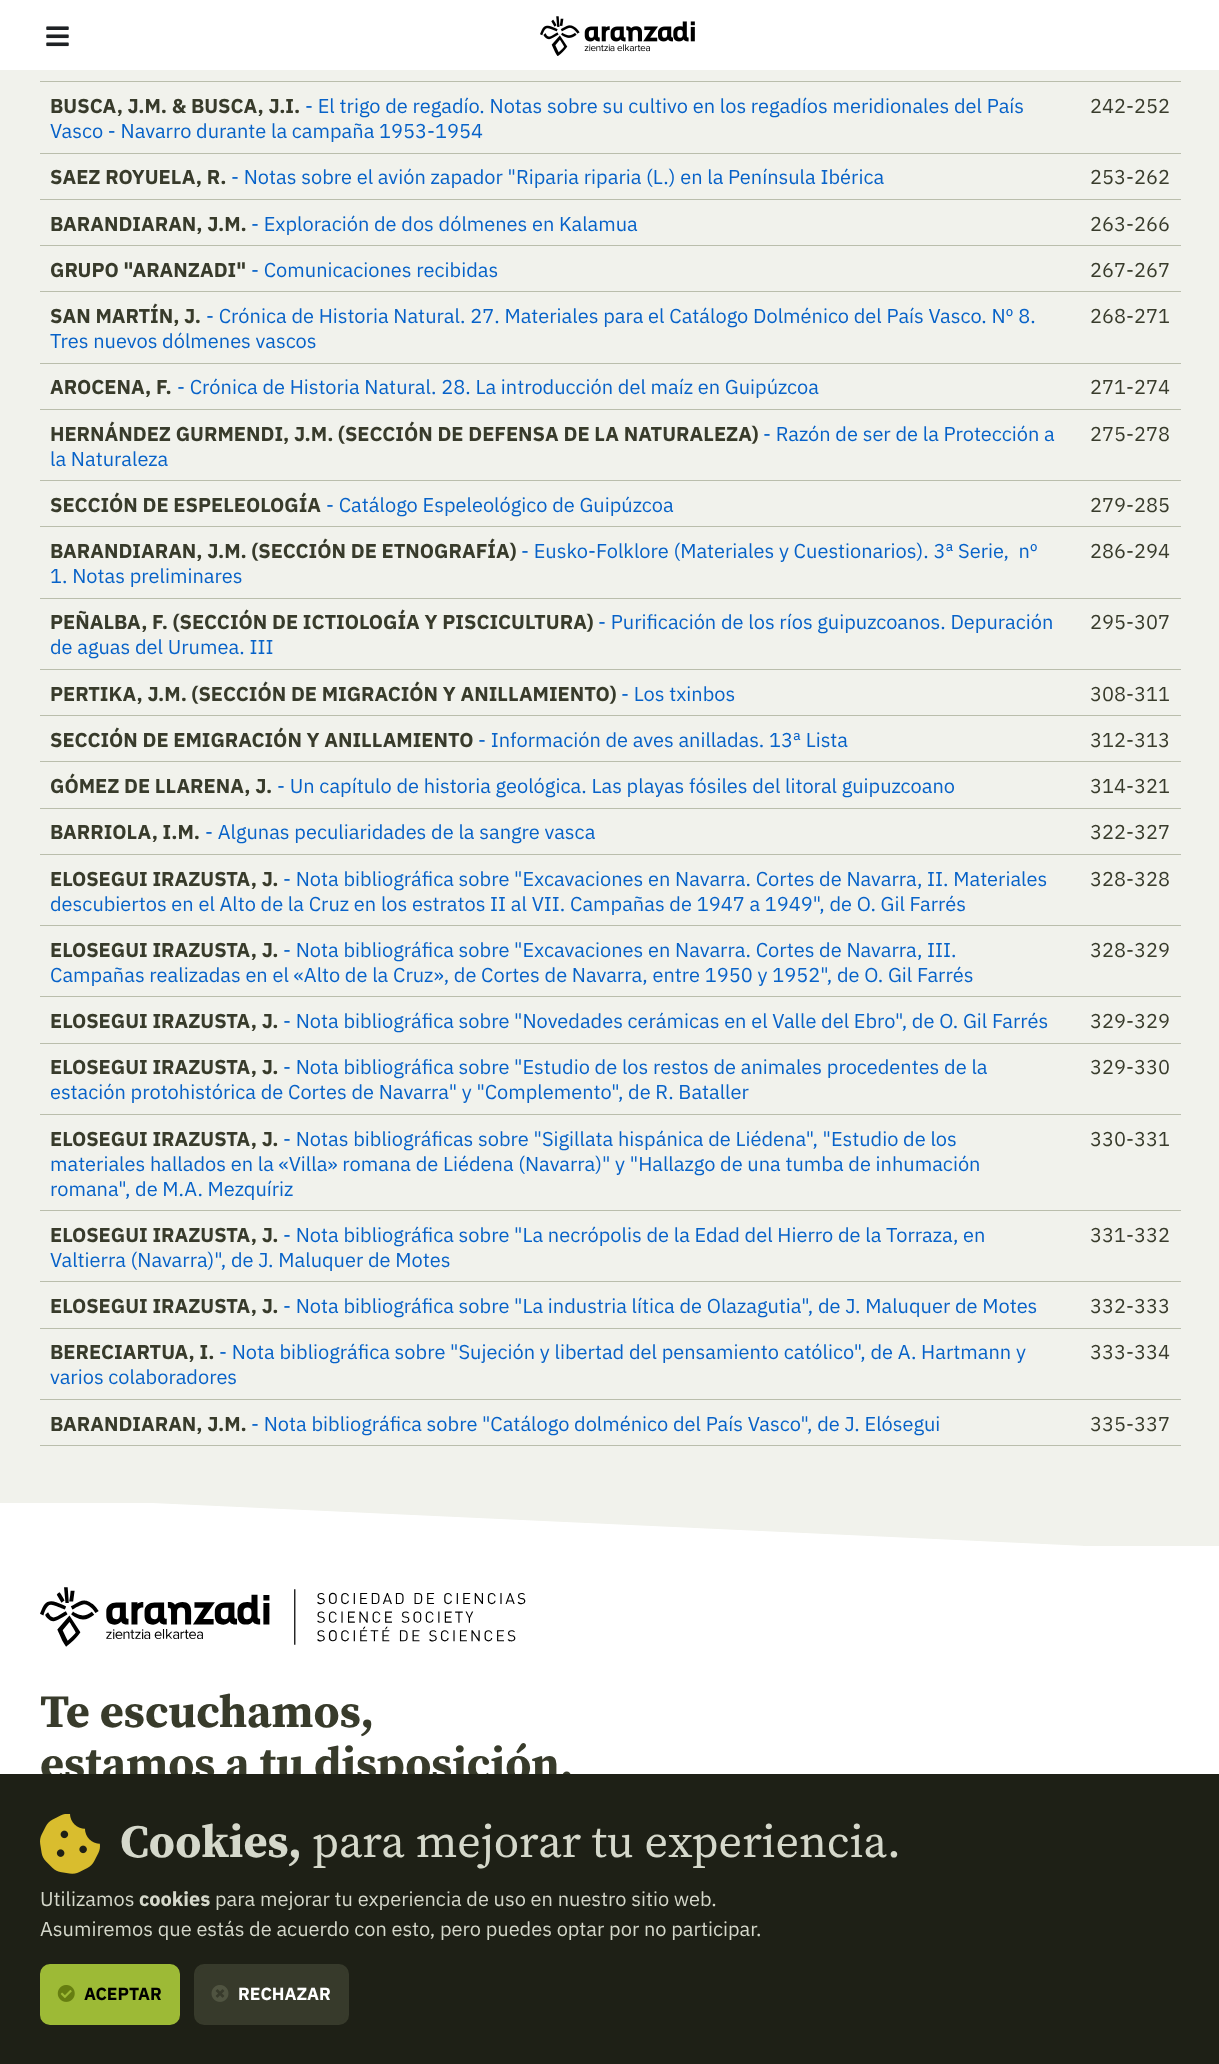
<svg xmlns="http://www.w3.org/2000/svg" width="1219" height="2064">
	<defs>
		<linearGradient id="g1" gradientUnits="userSpaceOnUse" x1="612" y1="1481" x2="608" y2="1568"><stop offset="0.49" stop-color="#F1F2EC" /><stop offset="0.5" stop-color="#FFFFFF" /></linearGradient>
	</defs>
	<rect width="100%" height="100%" fill="#F1F2EC" />
	<rect x="0" y="0" width="1219" height="70" fill="#FFFFFF" />
	<image x="46" y="26" width="23" height="21" href="assets/img1.png" />
	<image x="540" y="16" width="155" height="40" href="assets/img2.png" />
	<rect x="40" y="81" width="1141" height="1" fill="#BABEAC" />
	<text x="50" y="113" font-family="IBM Plex Sans" font-size="20" font-weight="700" fill="#383B2B">BUSCA, J.M. &amp; BUSCA, J.I.</text>
	<g font-family="IBM Plex Sans" font-size="20" fill="#0762C8">
		<text x="305" y="113">- El trigo de regadío. Notas sobre su cultivo en los regadíos meridionales del País</text>
		<text x="50" y="138">Vasco - Navarro durante la campaña 1953-1954</text>
	</g>
	<rect x="40" y="153" width="1141" height="1" fill="#BABEAC" />
	<text x="1090" y="113" font-family="IBM Plex Sans" font-size="20" fill="#383B2B">242-252</text>
	<text x="50" y="184" font-family="IBM Plex Sans" font-size="20" font-weight="700" fill="#383B2B">SAEZ ROYUELA, R.</text>
	<text x="231" y="184" font-family="IBM Plex Sans" font-size="20" fill="#0762C8">- Notas sobre el avión zapador "Riparia riparia (L.) en la Península Ibérica</text>
	<rect x="40" y="199" width="1141" height="1" fill="#BABEAC" />
	<text x="1090" y="184" font-family="IBM Plex Sans" font-size="20" fill="#383B2B">253-262</text>
	<text x="50" y="231" font-family="IBM Plex Sans" font-size="20" font-weight="700" fill="#383B2B">BARANDIARAN, J.M.</text>
	<text x="251" y="231" font-family="IBM Plex Sans" font-size="20" fill="#0762C8">- Exploración de dos dólmenes en Kalamua</text>
	<rect x="40" y="245" width="1141" height="1" fill="#BABEAC" />
	<text x="1090" y="231" font-family="IBM Plex Sans" font-size="20" fill="#383B2B">263-266</text>
	<text x="50" y="277" font-family="IBM Plex Sans" font-size="20" font-weight="700" fill="#383B2B">GRUPO "ARANZADI"</text>
	<text x="251" y="277" font-family="IBM Plex Sans" font-size="20" fill="#0762C8">- Comunicaciones recibidas</text>
	<rect x="40" y="291" width="1141" height="1" fill="#BABEAC" />
	<text x="1090" y="277" font-family="IBM Plex Sans" font-size="20" fill="#383B2B">267-267</text>
	<text x="50" y="323" font-family="IBM Plex Sans" font-size="20" font-weight="700" fill="#383B2B">SAN MARTÍN, J.</text>
	<g font-family="IBM Plex Sans" font-size="20" fill="#0762C8">
		<text x="206" y="323">- Crónica de Historia Natural. 27. Materiales para el Catálogo Dolménico del País Vasco. Nº 8.</text>
		<text x="50" y="348">Tres nuevos dólmenes vascos</text>
	</g>
	<rect x="40" y="363" width="1141" height="1" fill="#BABEAC" />
	<text x="1090" y="323" font-family="IBM Plex Sans" font-size="20" fill="#383B2B">268-271</text>
	<text x="50" y="394" font-family="IBM Plex Sans" font-size="20" font-weight="700" fill="#383B2B">AROCENA, F.</text>
	<text x="177" y="394" font-family="IBM Plex Sans" font-size="20" fill="#0762C8">- Crónica de Historia Natural. 28. La introducción del maíz en Guipúzcoa</text>
	<rect x="40" y="409" width="1141" height="1" fill="#BABEAC" />
	<text x="1090" y="394" font-family="IBM Plex Sans" font-size="20" fill="#383B2B">271-274</text>
	<text x="50" y="441" font-family="IBM Plex Sans" font-size="20" font-weight="700" fill="#383B2B">HERNÁNDEZ GURMENDI, J.M. (SECCIÓN DE DEFENSA DE LA NATURALEZA)</text>
	<g font-family="IBM Plex Sans" font-size="20" fill="#0762C8">
		<text x="763" y="441">- Razón de ser de la Protección a</text>
		<text x="50" y="466">la Naturaleza</text>
	</g>
	<rect x="40" y="480" width="1141" height="1" fill="#BABEAC" />
	<text x="1090" y="441" font-family="IBM Plex Sans" font-size="20" fill="#383B2B">275-278</text>
	<text x="50" y="512" font-family="IBM Plex Sans" font-size="20" font-weight="700" fill="#383B2B">SECCIÓN DE ESPELEOLOGÍA</text>
	<text x="326" y="512" font-family="IBM Plex Sans" font-size="20" fill="#0762C8">- Catálogo Espeleológico de Guipúzcoa</text>
	<rect x="40" y="526" width="1141" height="1" fill="#BABEAC" />
	<text x="1090" y="512" font-family="IBM Plex Sans" font-size="20" fill="#383B2B">279-285</text>
	<text x="50" y="558" font-family="IBM Plex Sans" font-size="20" font-weight="700" fill="#383B2B">BARANDIARAN, J.M. (SECCIÓN DE ETNOGRAFÍA)</text>
	<g font-family="IBM Plex Sans" font-size="20" fill="#0762C8">
		<text x="521" y="558" xml:space="preserve">- Eusko-Folklore (Materiales y Cuestionarios). 3ª Serie,  nº</text>
		<text x="50" y="583">1. Notas preliminares</text>
	</g>
	<rect x="40" y="598" width="1141" height="1" fill="#BABEAC" />
	<text x="1090" y="558" font-family="IBM Plex Sans" font-size="20" fill="#383B2B">286-294</text>
	<text x="50" y="629" font-family="IBM Plex Sans" font-size="20" font-weight="700" fill="#383B2B">PEÑALBA, F. (SECCIÓN DE ICTIOLOGÍA Y PISCICULTURA)</text>
	<g font-family="IBM Plex Sans" font-size="20" fill="#0762C8">
		<text x="598" y="629">- Purificación de los ríos guipuzcoanos. Depuración</text>
		<text x="50" y="654">de aguas del Urumea. III</text>
	</g>
	<rect x="40" y="669" width="1141" height="1" fill="#BABEAC" />
	<text x="1090" y="629" font-family="IBM Plex Sans" font-size="20" fill="#383B2B">295-307</text>
	<text x="50" y="701" font-family="IBM Plex Sans" font-size="20" font-weight="700" fill="#383B2B">PERTIKA, J.M. (SECCIÓN DE MIGRACIÓN Y ANILLAMIENTO)</text>
	<text x="621" y="701" font-family="IBM Plex Sans" font-size="20" fill="#0762C8">- Los txinbos</text>
	<rect x="40" y="715" width="1141" height="1" fill="#BABEAC" />
	<text x="1090" y="701" font-family="IBM Plex Sans" font-size="20" fill="#383B2B">308-311</text>
	<text x="50" y="747" font-family="IBM Plex Sans" font-size="20" font-weight="700" fill="#383B2B">SECCIÓN DE EMIGRACIÓN Y ANILLAMIENTO</text>
	<text x="478" y="747" font-family="IBM Plex Sans" font-size="20" fill="#0762C8">- Información de aves anilladas. 13ª Lista</text>
	<rect x="40" y="761" width="1141" height="1" fill="#BABEAC" />
	<text x="1090" y="747" font-family="IBM Plex Sans" font-size="20" fill="#383B2B">312-313</text>
	<text x="50" y="793" font-family="IBM Plex Sans" font-size="20" font-weight="700" fill="#383B2B">GÓMEZ DE LLARENA, J.</text>
	<text x="277" y="793" font-family="IBM Plex Sans" font-size="20" fill="#0762C8">- Un capítulo de historia geológica. Las playas fósiles del litoral guipuzcoano</text>
	<rect x="40" y="808" width="1141" height="1" fill="#BABEAC" />
	<text x="1090" y="793" font-family="IBM Plex Sans" font-size="20" fill="#383B2B">314-321</text>
	<text x="50" y="839" font-family="IBM Plex Sans" font-size="20" font-weight="700" fill="#383B2B">BARRIOLA, I.M.</text>
	<text x="205" y="839" font-family="IBM Plex Sans" font-size="20" fill="#0762C8">- Algunas peculiaridades de la sangre vasca</text>
	<rect x="40" y="854" width="1141" height="1" fill="#BABEAC" />
	<text x="1090" y="839" font-family="IBM Plex Sans" font-size="20" fill="#383B2B">322-327</text>
	<text x="50" y="886" font-family="IBM Plex Sans" font-size="20" font-weight="700" fill="#383B2B">ELOSEGUI IRAZUSTA, J.</text>
	<g font-family="IBM Plex Sans" font-size="20" fill="#0762C8">
		<text x="283" y="886">- Nota bibliográfica sobre "Excavaciones en Navarra. Cortes de Navarra, II. Materiales</text>
		<text x="50" y="911">descubiertos en el Alto de la Cruz en los estratos II al VII. Campañas de 1947 a 1949", de O. Gil Farrés</text>
	</g>
	<rect x="40" y="925" width="1141" height="1" fill="#BABEAC" />
	<text x="1090" y="886" font-family="IBM Plex Sans" font-size="20" fill="#383B2B">328-328</text>
	<text x="50" y="957" font-family="IBM Plex Sans" font-size="20" font-weight="700" fill="#383B2B">ELOSEGUI IRAZUSTA, J.</text>
	<g font-family="IBM Plex Sans" font-size="20" fill="#0762C8">
		<text x="283" y="957">- Nota bibliográfica sobre "Excavaciones en Navarra. Cortes de Navarra, III.</text>
		<text x="50" y="982">Campañas realizadas en el «Alto de la Cruz», de Cortes de Navarra, entre 1950 y 1952", de O. Gil Farrés</text>
	</g>
	<rect x="40" y="996" width="1141" height="1" fill="#BABEAC" />
	<text x="1090" y="957" font-family="IBM Plex Sans" font-size="20" fill="#383B2B">328-329</text>
	<text x="50" y="1028" font-family="IBM Plex Sans" font-size="20" font-weight="700" fill="#383B2B">ELOSEGUI IRAZUSTA, J.</text>
	<text x="283" y="1028" font-family="IBM Plex Sans" font-size="20" fill="#0762C8">- Nota bibliográfica sobre "Novedades cerámicas en el Valle del Ebro", de O. Gil Farrés</text>
	<rect x="40" y="1043" width="1141" height="1" fill="#BABEAC" />
	<text x="1090" y="1028" font-family="IBM Plex Sans" font-size="20" fill="#383B2B">329-329</text>
	<text x="50" y="1074" font-family="IBM Plex Sans" font-size="20" font-weight="700" fill="#383B2B">ELOSEGUI IRAZUSTA, J.</text>
	<g font-family="IBM Plex Sans" font-size="20" fill="#0762C8">
		<text x="283" y="1074">- Nota bibliográfica sobre "Estudio de los restos de animales procedentes de la</text>
		<text x="50" y="1099">estación protohistórica de Cortes de Navarra" y "Complemento", de R. Bataller</text>
	</g>
	<rect x="40" y="1114" width="1141" height="1" fill="#BABEAC" />
	<text x="1090" y="1074" font-family="IBM Plex Sans" font-size="20" fill="#383B2B">329-330</text>
	<text x="50" y="1146" font-family="IBM Plex Sans" font-size="20" font-weight="700" fill="#383B2B">ELOSEGUI IRAZUSTA, J.</text>
	<g font-family="IBM Plex Sans" font-size="20" fill="#0762C8">
		<text x="283" y="1146">- Notas bibliográficas sobre "Sigillata hispánica de Liédena", "Estudio de los</text>
		<text x="50" y="1171">materiales hallados en la «Villa» romana de Liédena (Navarra)" y "Hallazgo de una tumba de inhumación</text>
		<text x="50" y="1196">romana", de M.A. Mezquíriz</text>
	</g>
	<rect x="40" y="1210" width="1141" height="1" fill="#BABEAC" />
	<text x="1090" y="1146" font-family="IBM Plex Sans" font-size="20" fill="#383B2B">330-331</text>
	<text x="50" y="1242" font-family="IBM Plex Sans" font-size="20" font-weight="700" fill="#383B2B">ELOSEGUI IRAZUSTA, J.</text>
	<g font-family="IBM Plex Sans" font-size="20" fill="#0762C8">
		<text x="283" y="1242">- Nota bibliográfica sobre "La necrópolis de la Edad del Hierro de la Torraza, en</text>
		<text x="50" y="1267">Valtierra (Navarra)", de J. Maluquer de Motes</text>
	</g>
	<rect x="40" y="1281" width="1141" height="1" fill="#BABEAC" />
	<text x="1090" y="1242" font-family="IBM Plex Sans" font-size="20" fill="#383B2B">331-332</text>
	<text x="50" y="1313" font-family="IBM Plex Sans" font-size="20" font-weight="700" fill="#383B2B">ELOSEGUI IRAZUSTA, J.</text>
	<text x="283" y="1313" font-family="IBM Plex Sans" font-size="20" fill="#0762C8">- Nota bibliográfica sobre "La industria lítica de Olazagutia", de J. Maluquer de Motes</text>
	<rect x="40" y="1328" width="1141" height="1" fill="#BABEAC" />
	<text x="1090" y="1313" font-family="IBM Plex Sans" font-size="20" fill="#383B2B">332-333</text>
	<text x="50" y="1359" font-family="IBM Plex Sans" font-size="20" font-weight="700" fill="#383B2B">BERECIARTUA, I.</text>
	<g font-family="IBM Plex Sans" font-size="20" fill="#0762C8">
		<text x="219" y="1359">- Nota bibliográfica sobre "Sujeción y libertad del pensamiento católico", de A. Hartmann y</text>
		<text x="50" y="1384">varios colaboradores</text>
	</g>
	<rect x="40" y="1399" width="1141" height="1" fill="#BABEAC" />
	<text x="1090" y="1359" font-family="IBM Plex Sans" font-size="20" fill="#383B2B">333-334</text>
	<text x="50" y="1431" font-family="IBM Plex Sans" font-size="20" font-weight="700" fill="#383B2B">BARANDIARAN, J.M.</text>
	<text x="251" y="1431" font-family="IBM Plex Sans" font-size="20" fill="#0762C8">- Nota bibliográfica sobre "Catálogo dolménico del País Vasco", de J. Elósegui</text>
	<rect x="40" y="1445" width="1141" height="1" fill="#BABEAC" />
	<text x="1090" y="1431" font-family="IBM Plex Sans" font-size="20" fill="#383B2B">335-337</text>
	<rect x="0" y="1546" width="1219" height="228" fill="#FFFFFF" />
	<rect x="0" y="1503" width="1083" height="43" fill="url(#g1)" />
	<image x="40" y="1587" width="486" height="60" href="assets/img3.png" />
	<g font-family="Source Serif Pro" font-size="46.25" font-weight="700" fill="#383B2B">
		<text x="40" y="1727">Te escuchamos,</text>
		<text x="40" y="1779">estamos a tu disposición.</text>
	</g>
	<rect x="0" y="1774" width="1219" height="290" fill="#1E2016" />
	<image x="40" y="1814" width="60" height="60" href="assets/img4.png" />
	<text x="120" y="1857" font-family="Source Serif Pro" font-size="46.25" font-weight="700" fill="#D5D8CB">Cookies,</text>
	<text x="312" y="1857" font-family="Source Serif Pro" font-size="46.25" fill="#D5D8CB">para mejorar tu experiencia.</text>
	<text x="40" y="1906" font-family="IBM Plex Sans" font-size="20" fill="#D5D8CB">Utilizamos</text>
	<text x="139" y="1906" font-family="IBM Plex Sans" font-size="20" font-weight="700" fill="#D5D8CB">cookies</text>
	<g font-family="IBM Plex Sans" font-size="20" fill="#D5D8CB">
		<text x="215" y="1906">para mejorar tu experiencia de uso en nuestro sitio web.</text>
		<text x="40" y="1936">Asumiremos que estás de acuerdo con esto, pero puedes optar por no participar.</text>
	</g>
	<rect x="41.5" y="1965.5" width="137" height="58" rx="8.5" fill="#9DBA36" stroke="#9DBA36" stroke-width="3" />
	<image x="57" y="1985" width="18" height="17" href="assets/img5.png" />
	<text x="84" y="2000" font-family="IBM Plex Sans" font-size="17.5" font-weight="700" fill="#000000">ACEPTAR</text>
	<rect x="195.5" y="1965.5" width="152" height="58" rx="8.5" fill="#373A2B" stroke="#373A2B" stroke-width="3" />
	<image x="211" y="1985" width="18" height="17" href="assets/img6.png" />
	<text x="238" y="2000" font-family="IBM Plex Sans" font-size="17.5" font-weight="700" fill="#FFFFFF">RECHAZAR</text>
</svg>
